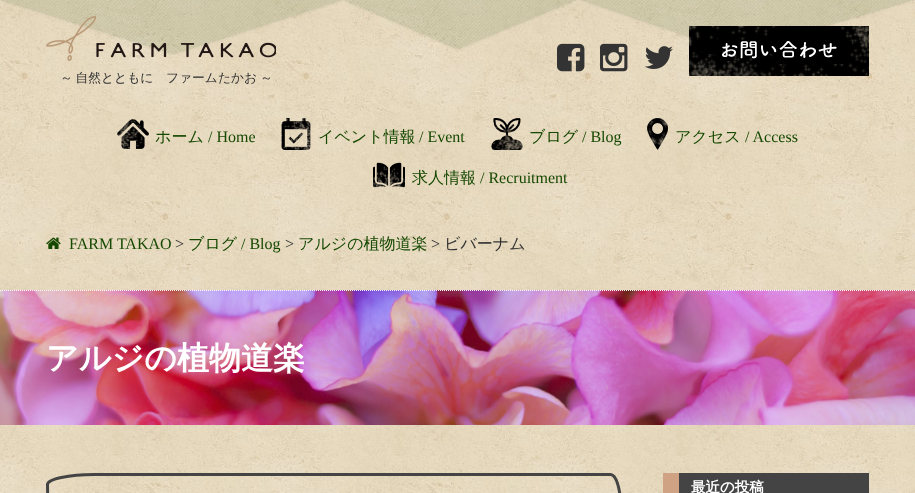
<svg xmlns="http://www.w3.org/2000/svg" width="915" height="493">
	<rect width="100%" height="100%" fill="#FFFFFF" />
	<image x="0" y="0" width="915" height="493" href="assets/img1.png" />
	<image x="0" y="0" width="914" height="55" href="assets/img2.png" />
	<image x="557" y="43" width="28" height="29" href="assets/img3.png" />
	<image x="600" y="43" width="28" height="29" href="assets/img4.png" />
	<image x="645" y="46" width="28" height="23" href="assets/img5.png" />
	<image x="689" y="26" width="180" height="50" href="assets/img6.png" />
	<image x="46" y="16" width="230" height="45" href="assets/img7.png" />
	<text x="60" y="82" word-spacing="-1" font-family="WenQuanYi Zen Hei" font-size="12.75" font-weight="500" fill="#333333">～ 自然とともに　ファームたかお ～</text>
	<image x="117" y="119" width="32" height="30" href="assets/img8.png" />
	<text x="155" y="142" font-family="WenQuanYi Zen Hei" font-size="16" font-weight="500" fill="#154800">ホーム</text>
	<text x="208" y="142" font-family="Liberation Serif" font-size="16" fill="#154800">/ Home</text>
	<image x="281" y="118" width="30" height="32" href="assets/img9.png" />
	<text x="318" y="142" font-family="WenQuanYi Zen Hei" font-size="16" font-weight="500" fill="#154800">イベント情報</text>
	<text x="419" y="142" font-family="Liberation Serif" font-size="16" fill="#154800">/ Event</text>
	<image x="491" y="118" width="32" height="32" href="assets/img10.png" />
	<text x="529" y="142" font-family="WenQuanYi Zen Hei" font-size="16" font-weight="500" fill="#154800">ブログ</text>
	<text x="582" y="142" font-family="Liberation Serif" font-size="16" fill="#154800">/ Blog</text>
	<image x="647" y="118" width="21" height="32" href="assets/img11.png" />
	<text x="675" y="142" font-family="WenQuanYi Zen Hei" font-size="16" font-weight="500" fill="#154800">アクセス</text>
	<text x="745" y="142" font-family="Liberation Serif" font-size="16" fill="#154800">/ Access</text>
	<image x="373" y="162" width="32" height="26" href="assets/img12.png" />
	<text x="412" y="183" font-family="WenQuanYi Zen Hei" font-size="16" font-weight="500" fill="#154800">求人情報</text>
	<text x="480" y="183" font-family="Liberation Serif" font-size="16" fill="#154800">/ Recruitment</text>
	<image x="46" y="237" width="15" height="12" href="assets/img13.png" />
	<text x="69" y="249" font-family="Liberation Serif" font-size="16" fill="#154800">FARM TAKAO</text>
	<text x="175" y="249" font-family="Liberation Serif" font-size="16" fill="#333333">&gt;</text>
	<text x="188" y="249" font-family="WenQuanYi Zen Hei" font-size="16" font-weight="500" fill="#154800">ブログ</text>
	<text x="241" y="249" font-family="Liberation Serif" font-size="16" fill="#154800">/ Blog</text>
	<text x="285" y="249" font-family="Liberation Serif" font-size="16" fill="#333333">&gt;</text>
	<text x="298" y="249" font-family="WenQuanYi Zen Hei" font-size="16" font-weight="500" fill="#154800">アルジの植物道楽</text>
	<text x="431" y="249" font-family="Liberation Serif" font-size="16" fill="#333333">&gt;</text>
	<text x="444" y="249" font-family="WenQuanYi Zen Hei" font-size="16" font-weight="500" fill="#333333">ビバーナム</text>
	<image x="0" y="290" width="915" height="135" href="assets/img14.png" />
	<path d="M0 290.5H915" fill="none" stroke="#FFFFFF" stroke-dasharray="1 1" />
	<text x="46" y="369" font-family="WenQuanYi Zen Hei" font-size="32" font-weight="700" fill="#FFFFFF">アルジの植物道楽</text>
	<path d="M94.5 474.5H610.5C616 474.5 620.5 488.5 620.5 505.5V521.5C620.5 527 606.5 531.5 589.5 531.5H57.5C52 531.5 47.5 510.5 47.5 484.5C47.5 479 68.5 474.5 94.5 474.5Z" fill="none" stroke="#444444" stroke-width="3" />
	<rect x="679" y="473" width="190" height="20" fill="#444444" />
	<rect x="663" y="473" width="16" height="20" fill="#CFA283" />
	<text x="691" y="492" font-family="WenQuanYi Zen Hei" font-size="14.5" font-weight="700" fill="#FFFFFF">最近の投稿</text>
</svg>
